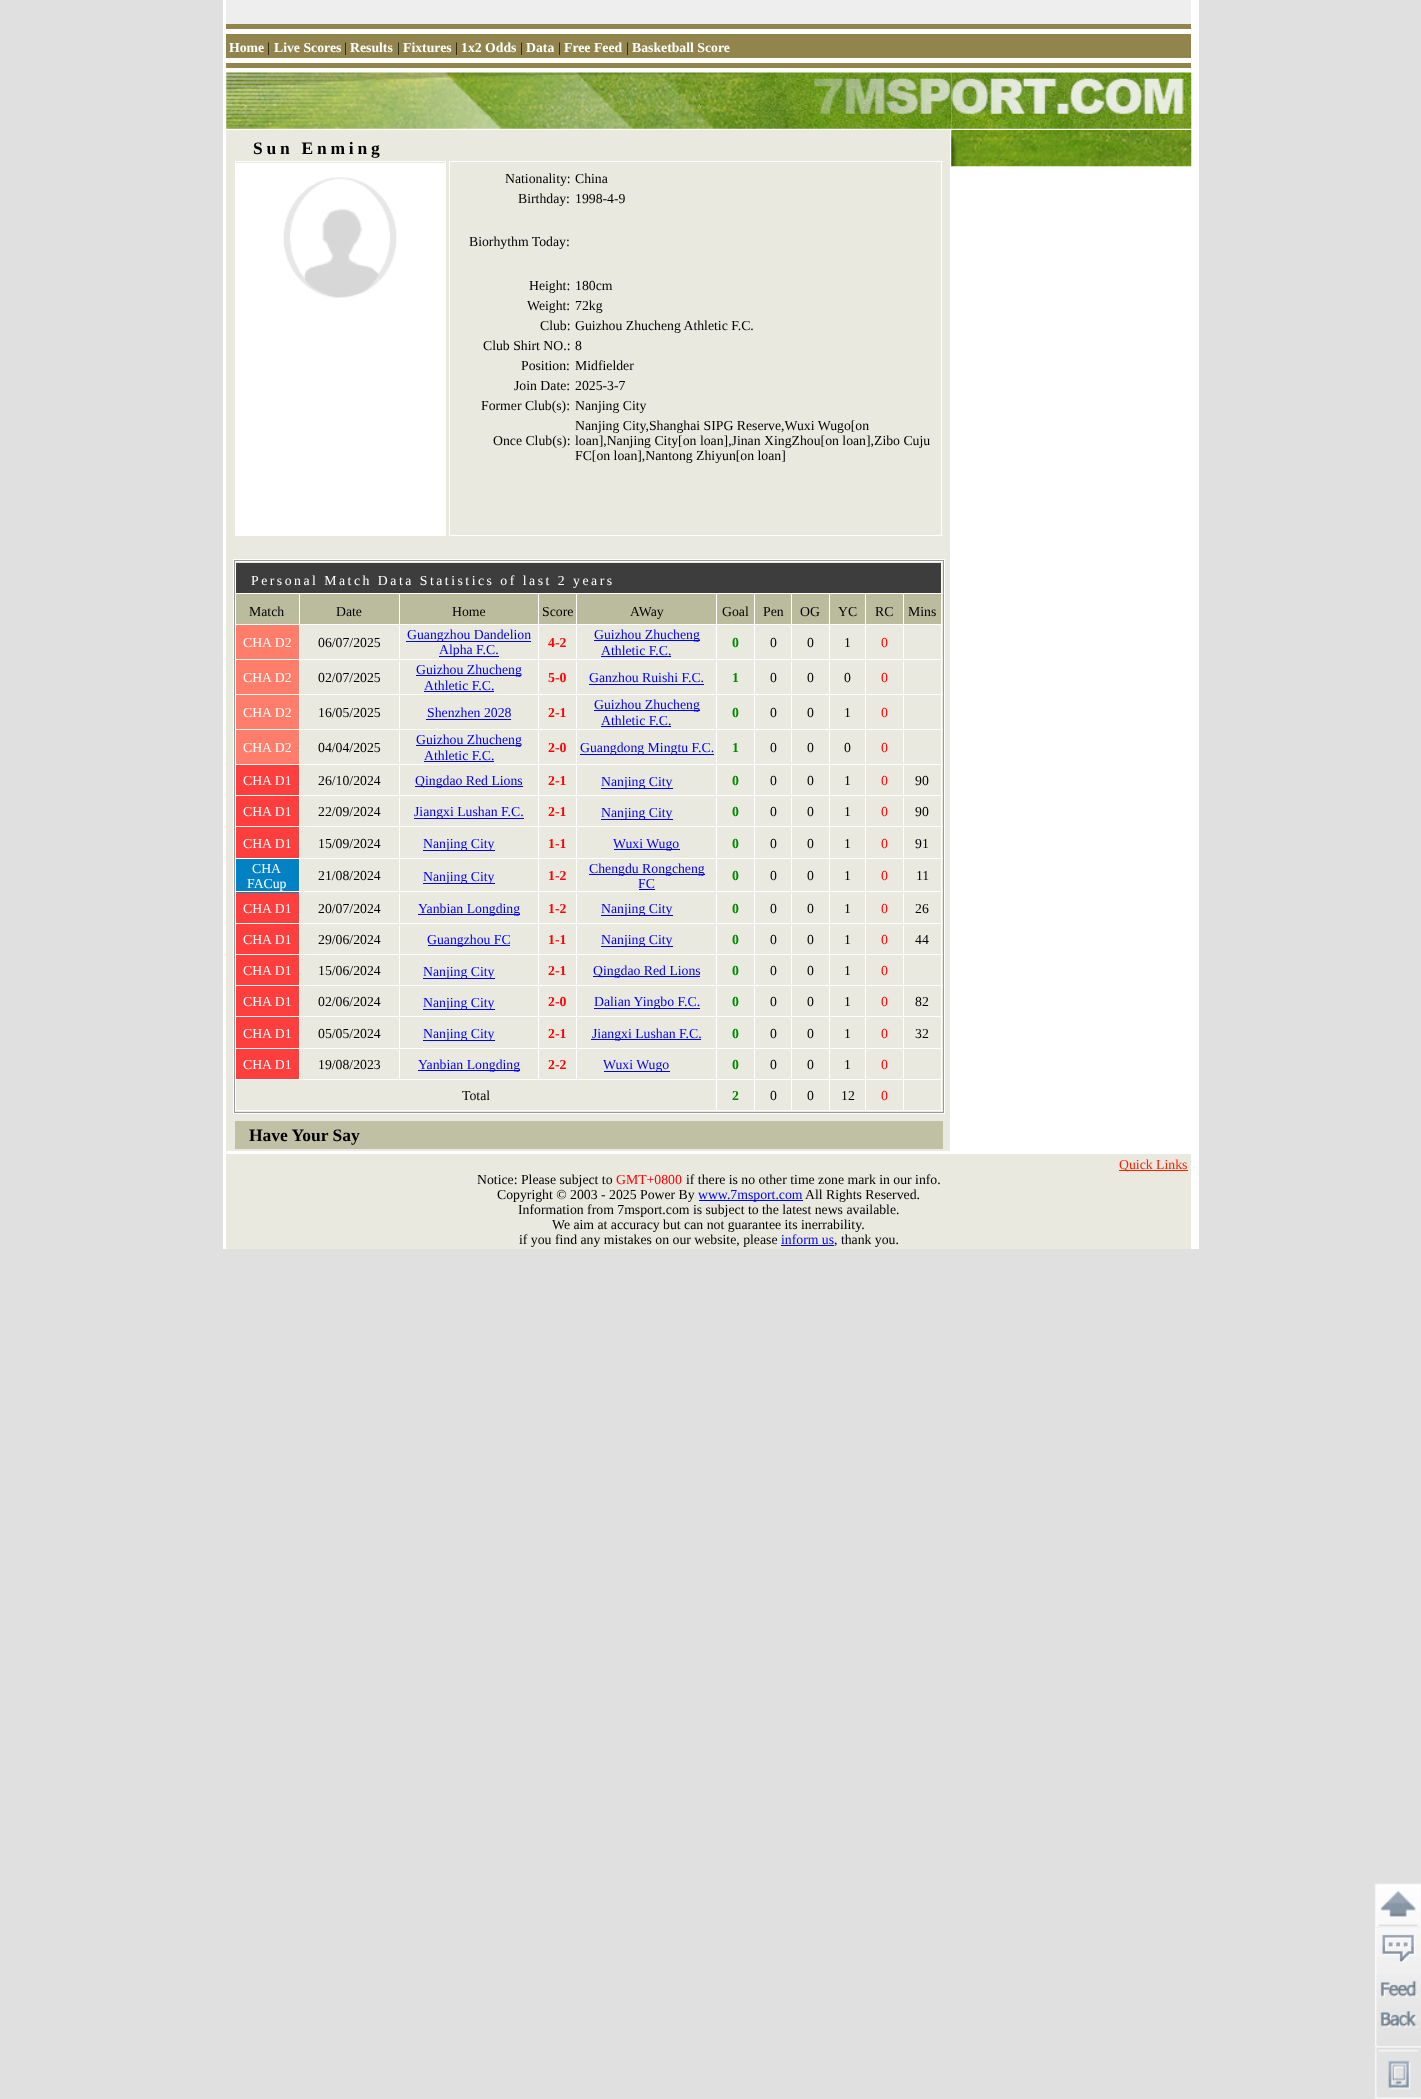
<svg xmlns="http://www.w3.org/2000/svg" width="1421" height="2099">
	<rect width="100%" height="100%" fill="#E0E0E0" />
	<rect x="223" y="0" width="976" height="1249" fill="#FFFFFF" />
	<rect x="226" y="0" width="965" height="24" fill="#EEEEEE" />
	<rect x="226" y="24" width="965" height="5" fill="#91844D" />
	<rect x="226" y="34" width="965" height="24" fill="#91844D" />
	<text x="229" y="52" font-family="Liberation Serif" font-size="13.75" font-weight="700" fill="#FFFFFF">Home</text>
	<text x="267" y="52" font-family="Liberation Serif" font-size="13.75" fill="#000000">|</text>
	<text x="274" y="52" font-family="Liberation Serif" font-size="13.75" font-weight="700" fill="#FFFFFF">Live Scores</text>
	<text x="344" y="52" font-family="Liberation Serif" font-size="13.75" fill="#000000">|</text>
	<text x="350" y="52" font-family="Liberation Serif" font-size="13.75" font-weight="700" fill="#FFFFFF">Results</text>
	<text x="397" y="52" font-family="Liberation Serif" font-size="13.75" fill="#000000">|</text>
	<text x="403" y="52" font-family="Liberation Serif" font-size="13.75" font-weight="700" fill="#FFFFFF">Fixtures</text>
	<text x="455" y="52" font-family="Liberation Serif" font-size="13.75" fill="#000000">|</text>
	<text x="461" y="52" font-family="Liberation Serif" font-size="13.75" font-weight="700" fill="#FFFFFF">1x2 Odds</text>
	<text x="520" y="52" font-family="Liberation Serif" font-size="13.75" fill="#000000">|</text>
	<text x="526" y="52" font-family="Liberation Serif" font-size="13.75" font-weight="700" fill="#FFFFFF">Data</text>
	<text x="558" y="52" font-family="Liberation Serif" font-size="13.75" fill="#000000">|</text>
	<text x="564" y="52" font-family="Liberation Serif" font-size="13.75" font-weight="700" fill="#FFFFFF">Free Feed</text>
	<text x="626" y="52" font-family="Liberation Serif" font-size="13.75" fill="#000000">|</text>
	<text x="632" y="52" font-family="Liberation Serif" font-size="13.75" font-weight="700" fill="#FFFFFF">Basketball Score</text>
	<rect x="226" y="63" width="965" height="5" fill="#91844D" />
	<image x="226" y="72" width="726" height="57" href="assets/img1.png" />
	<image x="951" y="72" width="241" height="57" href="assets/img2.png" />
	<rect x="226" y="130" width="724" height="1021" fill="#E9E9DF" />
	<text x="253" y="154" font-family="Liberation Serif" font-size="17.5" font-weight="700" letter-spacing="3.75" fill="#000000">Sun Enming</text>
	<rect x="236" y="163" width="209" height="373" fill="#FFFFFF" />
	<rect x="235" y="161" width="211" height="1" fill="#FFFFFF" />
	<rect x="445" y="161" width="1" height="375" fill="#FFFFFF" />
	<rect x="235" y="161" width="1" height="375" fill="#FFFFFF" />
	<image x="283" y="177" width="114" height="121" href="assets/img3.png" />
	<rect x="449" y="161" width="494" height="1" fill="#FFFFFF" />
	<rect x="941" y="161" width="1" height="375" fill="#FFFFFF" />
	<rect x="449" y="535" width="494" height="1" fill="#FFFFFF" />
	<rect x="449" y="161" width="1" height="375" fill="#FFFFFF" />
	<g font-family="Liberation Serif" font-size="13.75" fill="#000000">
		<text x="505" y="183">Nationality:</text>
		<text x="575" y="183">China</text>
		<text x="518" y="203">Birthday:</text>
		<text x="575" y="203">1998-4-9</text>
		<text x="469" y="246">Biorhythm Today:</text>
		<text x="529" y="290">Height:</text>
		<text x="575" y="290">180cm</text>
		<text x="527" y="310">Weight:</text>
		<text x="575" y="310">72kg</text>
		<text x="540" y="330">Club:</text>
		<text x="575" y="330">Guizhou Zhucheng Athletic F.C.</text>
		<text x="483" y="350">Club Shirt NO.:</text>
		<text x="575" y="350">8</text>
		<text x="521" y="370">Position:</text>
		<text x="575" y="370">Midfielder</text>
		<text x="514" y="390">Join Date:</text>
		<text x="575" y="390">2025-3-7</text>
		<text x="481" y="410">Former Club(s):</text>
		<text x="575" y="410">Nanjing City</text>
		<text x="493" y="445">Once Club(s):</text>
		<text x="575" y="430">Nanjing City,Shanghai SIPG Reserve,Wuxi Wugo[on</text>
		<text x="575" y="445">loan],Nanjing City[on loan],Jinan XingZhou[on loan],Zibo Cuju</text>
		<text x="575" y="460">FC[on loan],Nantong Zhiyun[on loan]</text>
	</g>
	<rect x="233.5" y="559.5" width="711" height="554" fill="none" stroke="#FFFFFF" />
	<rect x="234.5" y="560.5" width="709" height="552" fill="none" stroke="#999999" />
	<rect x="235" y="561" width="708" height="1" fill="#FFFFFF" />
	<rect x="941" y="561" width="1" height="550" fill="#FFFFFF" />
	<rect x="235" y="1110" width="708" height="1" fill="#FFFFFF" />
	<rect x="235" y="561" width="1" height="550" fill="#FFFFFF" />
	<rect x="236" y="563" width="705" height="30" fill="#3D3D3D" />
	<text x="251" y="585" font-family="Liberation Serif" font-size="13.75" letter-spacing="2.5" fill="#FFFFFF">Personal Match Data Statistics of last 2 years</text>
	<rect x="236" y="594" width="705" height="30" fill="#BBBB9D" />
	<rect x="903" y="593" width="40" height="1" fill="#FFFFFF" />
	<rect x="903" y="624" width="40" height="1" fill="#FFFFFF" />
	<rect x="903" y="659" width="40" height="1" fill="#FFFFFF" />
	<rect x="903" y="694" width="40" height="1" fill="#FFFFFF" />
	<rect x="903" y="729" width="40" height="1" fill="#FFFFFF" />
	<rect x="903" y="764" width="40" height="1" fill="#FFFFFF" />
	<rect x="903" y="795" width="40" height="1" fill="#FFFFFF" />
	<rect x="903" y="826" width="40" height="1" fill="#FFFFFF" />
	<rect x="903" y="858" width="40" height="1" fill="#FFFFFF" />
	<rect x="903" y="891" width="40" height="1" fill="#FFFFFF" />
	<rect x="903" y="923" width="40" height="1" fill="#FFFFFF" />
	<rect x="903" y="954" width="40" height="1" fill="#FFFFFF" />
	<rect x="903" y="985" width="40" height="1" fill="#FFFFFF" />
	<rect x="903" y="1016" width="40" height="1" fill="#FFFFFF" />
	<rect x="903" y="1048" width="40" height="1" fill="#FFFFFF" />
	<rect x="865" y="1079" width="39" height="1" fill="#FFFFFF" />
	<rect x="903" y="1079" width="1" height="32" fill="#FFFFFF" />
	<rect x="903" y="1079" width="40" height="1" fill="#FFFFFF" />
	<rect x="903" y="1048" width="1" height="32" fill="#FFFFFF" />
	<rect x="865" y="1048" width="39" height="1" fill="#FFFFFF" />
	<rect x="903" y="1016" width="1" height="33" fill="#FFFFFF" />
	<rect x="865" y="1016" width="39" height="1" fill="#FFFFFF" />
	<rect x="903" y="985" width="1" height="33" fill="#FFFFFF" />
	<rect x="865" y="985" width="39" height="1" fill="#FFFFFF" />
	<rect x="903" y="954" width="1" height="32" fill="#FFFFFF" />
	<rect x="865" y="954" width="39" height="1" fill="#FFFFFF" />
	<rect x="903" y="923" width="1" height="32" fill="#FFFFFF" />
	<rect x="865" y="923" width="39" height="1" fill="#FFFFFF" />
	<rect x="903" y="891" width="1" height="33" fill="#FFFFFF" />
	<rect x="865" y="891" width="39" height="1" fill="#FFFFFF" />
	<rect x="903" y="858" width="1" height="35" fill="#FFFFFF" />
	<rect x="865" y="858" width="39" height="1" fill="#FFFFFF" />
	<rect x="903" y="826" width="1" height="33" fill="#FFFFFF" />
	<rect x="865" y="826" width="39" height="1" fill="#FFFFFF" />
	<rect x="903" y="795" width="1" height="33" fill="#FFFFFF" />
	<rect x="865" y="795" width="39" height="1" fill="#FFFFFF" />
	<rect x="903" y="764" width="1" height="32" fill="#FFFFFF" />
	<rect x="865" y="764" width="39" height="1" fill="#FFFFFF" />
	<rect x="903" y="729" width="1" height="36" fill="#FFFFFF" />
	<rect x="865" y="729" width="39" height="1" fill="#FFFFFF" />
	<rect x="903" y="694" width="1" height="36" fill="#FFFFFF" />
	<rect x="865" y="694" width="39" height="1" fill="#FFFFFF" />
	<rect x="903" y="659" width="1" height="36" fill="#FFFFFF" />
	<rect x="865" y="659" width="39" height="1" fill="#FFFFFF" />
	<rect x="903" y="624" width="1" height="36" fill="#FFFFFF" />
	<rect x="865" y="624" width="39" height="1" fill="#FFFFFF" />
	<rect x="903" y="593" width="1" height="32" fill="#FFFFFF" />
	<rect x="865" y="593" width="39" height="1" fill="#FFFFFF" />
	<rect x="865" y="1079" width="1" height="32" fill="#FFFFFF" />
	<rect x="829" y="1079" width="37" height="1" fill="#FFFFFF" />
	<rect x="865" y="1048" width="1" height="32" fill="#FFFFFF" />
	<rect x="829" y="1048" width="37" height="1" fill="#FFFFFF" />
	<rect x="865" y="1016" width="1" height="33" fill="#FFFFFF" />
	<rect x="829" y="1016" width="37" height="1" fill="#FFFFFF" />
	<rect x="865" y="985" width="1" height="33" fill="#FFFFFF" />
	<rect x="829" y="985" width="37" height="1" fill="#FFFFFF" />
	<rect x="865" y="954" width="1" height="32" fill="#FFFFFF" />
	<rect x="829" y="954" width="37" height="1" fill="#FFFFFF" />
	<rect x="865" y="923" width="1" height="32" fill="#FFFFFF" />
	<rect x="829" y="923" width="37" height="1" fill="#FFFFFF" />
	<rect x="865" y="891" width="1" height="33" fill="#FFFFFF" />
	<rect x="829" y="891" width="37" height="1" fill="#FFFFFF" />
	<rect x="865" y="858" width="1" height="35" fill="#FFFFFF" />
	<rect x="829" y="858" width="37" height="1" fill="#FFFFFF" />
	<rect x="865" y="826" width="1" height="33" fill="#FFFFFF" />
	<rect x="829" y="826" width="37" height="1" fill="#FFFFFF" />
	<rect x="865" y="795" width="1" height="33" fill="#FFFFFF" />
	<rect x="829" y="795" width="37" height="1" fill="#FFFFFF" />
	<rect x="865" y="764" width="1" height="32" fill="#FFFFFF" />
	<rect x="829" y="764" width="37" height="1" fill="#FFFFFF" />
	<rect x="865" y="729" width="1" height="36" fill="#FFFFFF" />
	<rect x="829" y="729" width="37" height="1" fill="#FFFFFF" />
	<rect x="865" y="694" width="1" height="36" fill="#FFFFFF" />
	<rect x="829" y="694" width="37" height="1" fill="#FFFFFF" />
	<rect x="865" y="659" width="1" height="36" fill="#FFFFFF" />
	<rect x="829" y="659" width="37" height="1" fill="#FFFFFF" />
	<rect x="865" y="624" width="1" height="36" fill="#FFFFFF" />
	<rect x="829" y="624" width="37" height="1" fill="#FFFFFF" />
	<rect x="865" y="593" width="1" height="32" fill="#FFFFFF" />
	<rect x="829" y="593" width="37" height="1" fill="#FFFFFF" />
	<rect x="829" y="1079" width="1" height="32" fill="#FFFFFF" />
	<rect x="791" y="1079" width="39" height="1" fill="#FFFFFF" />
	<rect x="829" y="1048" width="1" height="32" fill="#FFFFFF" />
	<rect x="791" y="1048" width="39" height="1" fill="#FFFFFF" />
	<rect x="829" y="1016" width="1" height="33" fill="#FFFFFF" />
	<rect x="791" y="1016" width="39" height="1" fill="#FFFFFF" />
	<rect x="829" y="985" width="1" height="33" fill="#FFFFFF" />
	<rect x="791" y="985" width="39" height="1" fill="#FFFFFF" />
	<rect x="829" y="954" width="1" height="32" fill="#FFFFFF" />
	<rect x="791" y="954" width="39" height="1" fill="#FFFFFF" />
	<rect x="829" y="923" width="1" height="32" fill="#FFFFFF" />
	<rect x="791" y="923" width="39" height="1" fill="#FFFFFF" />
	<rect x="829" y="891" width="1" height="33" fill="#FFFFFF" />
	<rect x="791" y="891" width="39" height="1" fill="#FFFFFF" />
	<rect x="829" y="858" width="1" height="35" fill="#FFFFFF" />
	<rect x="791" y="858" width="39" height="1" fill="#FFFFFF" />
	<rect x="829" y="826" width="1" height="33" fill="#FFFFFF" />
	<rect x="791" y="826" width="39" height="1" fill="#FFFFFF" />
	<rect x="829" y="795" width="1" height="33" fill="#FFFFFF" />
	<rect x="791" y="795" width="39" height="1" fill="#FFFFFF" />
	<rect x="829" y="764" width="1" height="32" fill="#FFFFFF" />
	<rect x="791" y="764" width="39" height="1" fill="#FFFFFF" />
	<rect x="829" y="729" width="1" height="36" fill="#FFFFFF" />
	<rect x="791" y="729" width="39" height="1" fill="#FFFFFF" />
	<rect x="829" y="694" width="1" height="36" fill="#FFFFFF" />
	<rect x="791" y="694" width="39" height="1" fill="#FFFFFF" />
	<rect x="829" y="659" width="1" height="36" fill="#FFFFFF" />
	<rect x="791" y="659" width="39" height="1" fill="#FFFFFF" />
	<rect x="829" y="624" width="1" height="36" fill="#FFFFFF" />
	<rect x="791" y="624" width="39" height="1" fill="#FFFFFF" />
	<rect x="829" y="593" width="1" height="32" fill="#FFFFFF" />
	<rect x="791" y="593" width="39" height="1" fill="#FFFFFF" />
	<rect x="791" y="1079" width="1" height="32" fill="#FFFFFF" />
	<rect x="754" y="1079" width="39" height="1" fill="#FFFFFF" />
	<rect x="791" y="1048" width="1" height="32" fill="#FFFFFF" />
	<rect x="754" y="1048" width="39" height="1" fill="#FFFFFF" />
	<rect x="791" y="1016" width="1" height="33" fill="#FFFFFF" />
	<rect x="754" y="1016" width="39" height="1" fill="#FFFFFF" />
	<rect x="791" y="985" width="1" height="33" fill="#FFFFFF" />
	<rect x="754" y="985" width="39" height="1" fill="#FFFFFF" />
	<rect x="791" y="954" width="1" height="32" fill="#FFFFFF" />
	<rect x="754" y="954" width="39" height="1" fill="#FFFFFF" />
	<rect x="791" y="923" width="1" height="32" fill="#FFFFFF" />
	<rect x="754" y="923" width="39" height="1" fill="#FFFFFF" />
	<rect x="791" y="891" width="1" height="33" fill="#FFFFFF" />
	<rect x="754" y="891" width="39" height="1" fill="#FFFFFF" />
	<rect x="791" y="858" width="1" height="35" fill="#FFFFFF" />
	<rect x="754" y="858" width="39" height="1" fill="#FFFFFF" />
	<rect x="791" y="826" width="1" height="33" fill="#FFFFFF" />
	<rect x="754" y="826" width="39" height="1" fill="#FFFFFF" />
	<rect x="791" y="795" width="1" height="33" fill="#FFFFFF" />
	<rect x="754" y="795" width="39" height="1" fill="#FFFFFF" />
	<rect x="791" y="764" width="1" height="32" fill="#FFFFFF" />
	<rect x="754" y="764" width="39" height="1" fill="#FFFFFF" />
	<rect x="791" y="729" width="1" height="36" fill="#FFFFFF" />
	<rect x="754" y="729" width="39" height="1" fill="#FFFFFF" />
	<rect x="791" y="694" width="1" height="36" fill="#FFFFFF" />
	<rect x="754" y="694" width="39" height="1" fill="#FFFFFF" />
	<rect x="791" y="659" width="1" height="36" fill="#FFFFFF" />
	<rect x="754" y="659" width="39" height="1" fill="#FFFFFF" />
	<rect x="791" y="624" width="1" height="36" fill="#FFFFFF" />
	<rect x="754" y="624" width="39" height="1" fill="#FFFFFF" />
	<rect x="791" y="593" width="1" height="32" fill="#FFFFFF" />
	<rect x="754" y="593" width="39" height="1" fill="#FFFFFF" />
	<rect x="754" y="1079" width="1" height="32" fill="#FFFFFF" />
	<rect x="716" y="1079" width="39" height="1" fill="#FFFFFF" />
	<rect x="754" y="1048" width="1" height="32" fill="#FFFFFF" />
	<rect x="716" y="1048" width="39" height="1" fill="#FFFFFF" />
	<rect x="754" y="1016" width="1" height="33" fill="#FFFFFF" />
	<rect x="716" y="1016" width="39" height="1" fill="#FFFFFF" />
	<rect x="754" y="985" width="1" height="33" fill="#FFFFFF" />
	<rect x="716" y="985" width="39" height="1" fill="#FFFFFF" />
	<rect x="754" y="954" width="1" height="32" fill="#FFFFFF" />
	<rect x="716" y="954" width="39" height="1" fill="#FFFFFF" />
	<rect x="754" y="923" width="1" height="32" fill="#FFFFFF" />
	<rect x="716" y="923" width="39" height="1" fill="#FFFFFF" />
	<rect x="754" y="891" width="1" height="33" fill="#FFFFFF" />
	<rect x="716" y="891" width="39" height="1" fill="#FFFFFF" />
	<rect x="754" y="858" width="1" height="35" fill="#FFFFFF" />
	<rect x="716" y="858" width="39" height="1" fill="#FFFFFF" />
	<rect x="754" y="826" width="1" height="33" fill="#FFFFFF" />
	<rect x="716" y="826" width="39" height="1" fill="#FFFFFF" />
	<rect x="754" y="795" width="1" height="33" fill="#FFFFFF" />
	<rect x="716" y="795" width="39" height="1" fill="#FFFFFF" />
	<rect x="754" y="764" width="1" height="32" fill="#FFFFFF" />
	<rect x="716" y="764" width="39" height="1" fill="#FFFFFF" />
	<rect x="754" y="729" width="1" height="36" fill="#FFFFFF" />
	<rect x="716" y="729" width="39" height="1" fill="#FFFFFF" />
	<rect x="754" y="694" width="1" height="36" fill="#FFFFFF" />
	<rect x="716" y="694" width="39" height="1" fill="#FFFFFF" />
	<rect x="754" y="659" width="1" height="36" fill="#FFFFFF" />
	<rect x="716" y="659" width="39" height="1" fill="#FFFFFF" />
	<rect x="754" y="624" width="1" height="36" fill="#FFFFFF" />
	<rect x="716" y="624" width="39" height="1" fill="#FFFFFF" />
	<rect x="754" y="593" width="1" height="32" fill="#FFFFFF" />
	<rect x="716" y="593" width="39" height="1" fill="#FFFFFF" />
	<rect x="716" y="1079" width="1" height="32" fill="#FFFFFF" />
	<rect x="235" y="1079" width="483" height="1" fill="#FFFFFF" />
	<rect x="716" y="1048" width="1" height="32" fill="#FFFFFF" />
	<rect x="576" y="1048" width="142" height="1" fill="#FFFFFF" />
	<rect x="716" y="1016" width="1" height="33" fill="#FFFFFF" />
	<rect x="576" y="1016" width="142" height="1" fill="#FFFFFF" />
	<rect x="716" y="985" width="1" height="33" fill="#FFFFFF" />
	<rect x="576" y="985" width="142" height="1" fill="#FFFFFF" />
	<rect x="716" y="954" width="1" height="32" fill="#FFFFFF" />
	<rect x="576" y="954" width="142" height="1" fill="#FFFFFF" />
	<rect x="716" y="923" width="1" height="32" fill="#FFFFFF" />
	<rect x="576" y="923" width="142" height="1" fill="#FFFFFF" />
	<rect x="716" y="891" width="1" height="33" fill="#FFFFFF" />
	<rect x="576" y="891" width="142" height="1" fill="#FFFFFF" />
	<rect x="716" y="858" width="1" height="35" fill="#FFFFFF" />
	<rect x="576" y="858" width="142" height="1" fill="#FFFFFF" />
	<rect x="716" y="826" width="1" height="33" fill="#FFFFFF" />
	<rect x="576" y="826" width="142" height="1" fill="#FFFFFF" />
	<rect x="716" y="795" width="1" height="33" fill="#FFFFFF" />
	<rect x="576" y="795" width="142" height="1" fill="#FFFFFF" />
	<rect x="716" y="764" width="1" height="32" fill="#FFFFFF" />
	<rect x="576" y="764" width="142" height="1" fill="#FFFFFF" />
	<rect x="716" y="729" width="1" height="36" fill="#FFFFFF" />
	<rect x="576" y="729" width="142" height="1" fill="#FFFFFF" />
	<rect x="716" y="694" width="1" height="36" fill="#FFFFFF" />
	<rect x="576" y="694" width="142" height="1" fill="#FFFFFF" />
	<rect x="716" y="659" width="1" height="36" fill="#FFFFFF" />
	<rect x="576" y="659" width="142" height="1" fill="#FFFFFF" />
	<rect x="716" y="624" width="1" height="36" fill="#FFFFFF" />
	<rect x="576" y="624" width="142" height="1" fill="#FFFFFF" />
	<rect x="716" y="593" width="1" height="32" fill="#FFFFFF" />
	<rect x="576" y="593" width="142" height="1" fill="#FFFFFF" />
	<rect x="576" y="1048" width="1" height="32" fill="#FFFFFF" />
	<rect x="538" y="1048" width="40" height="1" fill="#FFFFFF" />
	<rect x="576" y="1016" width="1" height="33" fill="#FFFFFF" />
	<rect x="538" y="1016" width="40" height="1" fill="#FFFFFF" />
	<rect x="576" y="985" width="1" height="33" fill="#FFFFFF" />
	<rect x="538" y="985" width="40" height="1" fill="#FFFFFF" />
	<rect x="576" y="954" width="1" height="32" fill="#FFFFFF" />
	<rect x="538" y="954" width="40" height="1" fill="#FFFFFF" />
	<rect x="576" y="923" width="1" height="32" fill="#FFFFFF" />
	<rect x="538" y="923" width="40" height="1" fill="#FFFFFF" />
	<rect x="576" y="891" width="1" height="33" fill="#FFFFFF" />
	<rect x="538" y="891" width="40" height="1" fill="#FFFFFF" />
	<rect x="576" y="858" width="1" height="35" fill="#FFFFFF" />
	<rect x="538" y="858" width="40" height="1" fill="#FFFFFF" />
	<rect x="576" y="826" width="1" height="33" fill="#FFFFFF" />
	<rect x="538" y="826" width="40" height="1" fill="#FFFFFF" />
	<rect x="576" y="795" width="1" height="33" fill="#FFFFFF" />
	<rect x="538" y="795" width="40" height="1" fill="#FFFFFF" />
	<rect x="576" y="764" width="1" height="32" fill="#FFFFFF" />
	<rect x="538" y="764" width="40" height="1" fill="#FFFFFF" />
	<rect x="576" y="729" width="1" height="36" fill="#FFFFFF" />
	<rect x="538" y="729" width="40" height="1" fill="#FFFFFF" />
	<rect x="576" y="694" width="1" height="36" fill="#FFFFFF" />
	<rect x="538" y="694" width="40" height="1" fill="#FFFFFF" />
	<rect x="576" y="659" width="1" height="36" fill="#FFFFFF" />
	<rect x="538" y="659" width="40" height="1" fill="#FFFFFF" />
	<rect x="576" y="624" width="1" height="36" fill="#FFFFFF" />
	<rect x="538" y="624" width="40" height="1" fill="#FFFFFF" />
	<rect x="576" y="593" width="1" height="32" fill="#FFFFFF" />
	<rect x="538" y="593" width="40" height="1" fill="#FFFFFF" />
	<rect x="538" y="1048" width="1" height="32" fill="#FFFFFF" />
	<rect x="399" y="1048" width="140" height="1" fill="#FFFFFF" />
	<rect x="538" y="1016" width="1" height="33" fill="#FFFFFF" />
	<rect x="399" y="1016" width="140" height="1" fill="#FFFFFF" />
	<rect x="538" y="985" width="1" height="33" fill="#FFFFFF" />
	<rect x="399" y="985" width="140" height="1" fill="#FFFFFF" />
	<rect x="538" y="954" width="1" height="32" fill="#FFFFFF" />
	<rect x="399" y="954" width="140" height="1" fill="#FFFFFF" />
	<rect x="538" y="923" width="1" height="32" fill="#FFFFFF" />
	<rect x="399" y="923" width="140" height="1" fill="#FFFFFF" />
	<rect x="538" y="891" width="1" height="33" fill="#FFFFFF" />
	<rect x="399" y="891" width="140" height="1" fill="#FFFFFF" />
	<rect x="538" y="858" width="1" height="35" fill="#FFFFFF" />
	<rect x="399" y="858" width="140" height="1" fill="#FFFFFF" />
	<rect x="538" y="826" width="1" height="33" fill="#FFFFFF" />
	<rect x="399" y="826" width="140" height="1" fill="#FFFFFF" />
	<rect x="538" y="795" width="1" height="33" fill="#FFFFFF" />
	<rect x="399" y="795" width="140" height="1" fill="#FFFFFF" />
	<rect x="538" y="764" width="1" height="32" fill="#FFFFFF" />
	<rect x="399" y="764" width="140" height="1" fill="#FFFFFF" />
	<rect x="538" y="729" width="1" height="36" fill="#FFFFFF" />
	<rect x="399" y="729" width="140" height="1" fill="#FFFFFF" />
	<rect x="538" y="694" width="1" height="36" fill="#FFFFFF" />
	<rect x="399" y="694" width="140" height="1" fill="#FFFFFF" />
	<rect x="538" y="659" width="1" height="36" fill="#FFFFFF" />
	<rect x="399" y="659" width="140" height="1" fill="#FFFFFF" />
	<rect x="538" y="624" width="1" height="36" fill="#FFFFFF" />
	<rect x="399" y="624" width="140" height="1" fill="#FFFFFF" />
	<rect x="538" y="593" width="1" height="32" fill="#FFFFFF" />
	<rect x="399" y="593" width="140" height="1" fill="#FFFFFF" />
	<rect x="399" y="1048" width="1" height="32" fill="#FFFFFF" />
	<rect x="299" y="1048" width="101" height="1" fill="#FFFFFF" />
	<rect x="399" y="1016" width="1" height="33" fill="#FFFFFF" />
	<rect x="299" y="1016" width="101" height="1" fill="#FFFFFF" />
	<rect x="399" y="985" width="1" height="33" fill="#FFFFFF" />
	<rect x="299" y="985" width="101" height="1" fill="#FFFFFF" />
	<rect x="399" y="954" width="1" height="32" fill="#FFFFFF" />
	<rect x="299" y="954" width="101" height="1" fill="#FFFFFF" />
	<rect x="399" y="923" width="1" height="32" fill="#FFFFFF" />
	<rect x="299" y="923" width="101" height="1" fill="#FFFFFF" />
	<rect x="399" y="891" width="1" height="33" fill="#FFFFFF" />
	<rect x="299" y="891" width="101" height="1" fill="#FFFFFF" />
	<rect x="399" y="858" width="1" height="35" fill="#FFFFFF" />
	<rect x="299" y="858" width="101" height="1" fill="#FFFFFF" />
	<rect x="399" y="826" width="1" height="33" fill="#FFFFFF" />
	<rect x="299" y="826" width="101" height="1" fill="#FFFFFF" />
	<rect x="399" y="795" width="1" height="33" fill="#FFFFFF" />
	<rect x="299" y="795" width="101" height="1" fill="#FFFFFF" />
	<rect x="399" y="764" width="1" height="32" fill="#FFFFFF" />
	<rect x="299" y="764" width="101" height="1" fill="#FFFFFF" />
	<rect x="399" y="729" width="1" height="36" fill="#FFFFFF" />
	<rect x="299" y="729" width="101" height="1" fill="#FFFFFF" />
	<rect x="399" y="694" width="1" height="36" fill="#FFFFFF" />
	<rect x="299" y="694" width="101" height="1" fill="#FFFFFF" />
	<rect x="399" y="659" width="1" height="36" fill="#FFFFFF" />
	<rect x="299" y="659" width="101" height="1" fill="#FFFFFF" />
	<rect x="399" y="624" width="1" height="36" fill="#FFFFFF" />
	<rect x="299" y="624" width="101" height="1" fill="#FFFFFF" />
	<rect x="399" y="593" width="1" height="32" fill="#FFFFFF" />
	<rect x="299" y="593" width="101" height="1" fill="#FFFFFF" />
	<rect x="236" y="796" width="63" height="62" fill="#FF3E3E" />
	<rect x="236" y="859" width="63" height="34" fill="#0381C5" />
	<rect x="236" y="986" width="63" height="62" fill="#FF3E3E" />
	<rect x="299" y="1048" width="1" height="32" fill="#FFFFFF" />
	<rect x="235" y="1048" width="65" height="1" fill="#FFFFFF" />
	<rect x="299" y="1016" width="1" height="33" fill="#FFFFFF" />
	<rect x="235" y="1016" width="65" height="1" fill="#FFFFFF" />
	<rect x="299" y="985" width="1" height="33" fill="#FFFFFF" />
	<rect x="235" y="985" width="65" height="1" fill="#FFFFFF" />
	<rect x="299" y="954" width="1" height="32" fill="#FFFFFF" />
	<rect x="235" y="954" width="65" height="1" fill="#FFFFFF" />
	<rect x="299" y="923" width="1" height="32" fill="#FFFFFF" />
	<rect x="235" y="923" width="65" height="1" fill="#FFFFFF" />
	<rect x="299" y="891" width="1" height="33" fill="#FFFFFF" />
	<rect x="235" y="891" width="65" height="1" fill="#FFFFFF" />
	<rect x="299" y="858" width="1" height="35" fill="#FFFFFF" />
	<rect x="235" y="858" width="65" height="1" fill="#FFFFFF" />
	<rect x="299" y="826" width="1" height="33" fill="#FFFFFF" />
	<rect x="235" y="826" width="65" height="1" fill="#FFFFFF" />
	<rect x="299" y="795" width="1" height="33" fill="#FFFFFF" />
	<rect x="235" y="795" width="65" height="1" fill="#FFFFFF" />
	<rect x="299" y="764" width="1" height="32" fill="#FFFFFF" />
	<rect x="235" y="764" width="65" height="1" fill="#FFFFFF" />
	<rect x="299" y="729" width="1" height="36" fill="#FFFFFF" />
	<rect x="235" y="729" width="65" height="1" fill="#FFFFFF" />
	<rect x="299" y="694" width="1" height="36" fill="#FFFFFF" />
	<rect x="235" y="694" width="65" height="1" fill="#FFFFFF" />
	<rect x="299" y="659" width="1" height="36" fill="#FFFFFF" />
	<rect x="235" y="659" width="65" height="1" fill="#FFFFFF" />
	<rect x="299" y="624" width="1" height="36" fill="#FFFFFF" />
	<rect x="235" y="624" width="65" height="1" fill="#FFFFFF" />
	<rect x="299" y="593" width="1" height="32" fill="#FFFFFF" />
	<rect x="235" y="593" width="65" height="1" fill="#FFFFFF" />
	<g font-family="Liberation Serif" font-size="13.75" fill="#000000">
		<text x="249" y="616">Match</text>
		<text x="336" y="616">Date</text>
		<text x="452" y="616">Home</text>
		<text x="542" y="616">Score</text>
		<text x="630" y="616">AWay</text>
		<text x="722" y="616">Goal</text>
		<text x="763" y="616">Pen</text>
		<text x="800" y="616">OG</text>
		<text x="838" y="616">YC</text>
		<text x="875" y="616">RC</text>
		<text x="908" y="616">Mins</text>
	</g>
	<rect x="236" y="625" width="63" height="34" fill="#FF7D6A" />
	<text x="243" y="647" font-family="Liberation Serif" font-size="13.75" fill="#FFFFFF">CHA D2</text>
	<text x="318" y="647" font-family="Liberation Serif" font-size="13.75" fill="#000000">06/07/2025</text>
	<rect x="406" y="641" width="125" height="1" fill="#0000EE" />
	<text x="407" y="639" font-family="Liberation Serif" font-size="13.75" fill="#0000EE">Guangzhou Dandelion</text>
	<rect x="439" y="656" width="60" height="1" fill="#0000EE" />
	<text x="439" y="654" font-family="Liberation Serif" font-size="13.75" fill="#0000EE">Alpha F.C.</text>
	<text x="548" y="647" font-family="Liberation Serif" font-size="13.75" font-weight="700" fill="#FF0000">4-2</text>
	<rect x="594" y="640" width="106" height="1" fill="#0000EE" />
	<g font-family="Liberation Serif" font-size="13.75" fill="#0000EE">
		<text x="594" y="639">Guizhou Zhucheng</text>
		<text x="601" y="655">Athletic F.C.</text>
	</g>
	<rect x="601" y="656" width="70" height="1" fill="#0000EE" />
	<text x="732" y="647" font-family="Liberation Serif" font-size="13.75" font-weight="700" fill="#008800">0</text>
	<g font-family="Liberation Serif" font-size="13.75" fill="#000000">
		<text x="770" y="647">0</text>
		<text x="807" y="647">0</text>
		<text x="844" y="647">1</text>
	</g>
	<text x="881" y="647" font-family="Liberation Serif" font-size="13.75" fill="#FF0000">0</text>
	<rect x="236" y="660" width="63" height="34" fill="#FF7D6A" />
	<text x="243" y="682" font-family="Liberation Serif" font-size="13.75" fill="#FFFFFF">CHA D2</text>
	<text x="318" y="682" font-family="Liberation Serif" font-size="13.75" fill="#000000">02/07/2025</text>
	<rect x="416" y="675" width="105" height="1" fill="#0000EE" />
	<g font-family="Liberation Serif" font-size="13.75" fill="#0000EE">
		<text x="416" y="674">Guizhou Zhucheng</text>
		<text x="424" y="690">Athletic F.C.</text>
	</g>
	<rect x="424" y="691" width="70" height="1" fill="#0000EE" />
	<text x="548" y="682" font-family="Liberation Serif" font-size="13.75" font-weight="700" fill="#FF0000">5-0</text>
	<text x="589" y="682" font-family="Liberation Serif" font-size="13.75" fill="#0000EE">Ganzhou Ruishi F.C.</text>
	<rect x="589" y="684" width="115" height="1" fill="#0000EE" />
	<text x="732" y="682" font-family="Liberation Serif" font-size="13.75" font-weight="700" fill="#008800">1</text>
	<g font-family="Liberation Serif" font-size="13.75" fill="#000000">
		<text x="770" y="682">0</text>
		<text x="807" y="682">0</text>
		<text x="844" y="682">0</text>
	</g>
	<text x="881" y="682" font-family="Liberation Serif" font-size="13.75" fill="#FF0000">0</text>
	<rect x="236" y="695" width="63" height="34" fill="#FF7D6A" />
	<text x="243" y="717" font-family="Liberation Serif" font-size="13.75" fill="#FFFFFF">CHA D2</text>
	<text x="318" y="717" font-family="Liberation Serif" font-size="13.75" fill="#000000">16/05/2025</text>
	<text x="427" y="717" font-family="Liberation Serif" font-size="13.75" fill="#0000EE">Shenzhen 2028</text>
	<rect x="426" y="719" width="85" height="1" fill="#0000EE" />
	<text x="548" y="717" font-family="Liberation Serif" font-size="13.75" font-weight="700" fill="#FF0000">2-1</text>
	<rect x="594" y="710" width="106" height="1" fill="#0000EE" />
	<g font-family="Liberation Serif" font-size="13.75" fill="#0000EE">
		<text x="594" y="709">Guizhou Zhucheng</text>
		<text x="601" y="725">Athletic F.C.</text>
	</g>
	<rect x="601" y="726" width="70" height="1" fill="#0000EE" />
	<text x="732" y="717" font-family="Liberation Serif" font-size="13.75" font-weight="700" fill="#008800">0</text>
	<g font-family="Liberation Serif" font-size="13.75" fill="#000000">
		<text x="770" y="717">0</text>
		<text x="807" y="717">0</text>
		<text x="844" y="717">1</text>
	</g>
	<text x="881" y="717" font-family="Liberation Serif" font-size="13.75" fill="#FF0000">0</text>
	<rect x="236" y="730" width="63" height="34" fill="#FF7D6A" />
	<text x="243" y="752" font-family="Liberation Serif" font-size="13.75" fill="#FFFFFF">CHA D2</text>
	<text x="318" y="752" font-family="Liberation Serif" font-size="13.75" fill="#000000">04/04/2025</text>
	<rect x="416" y="745" width="105" height="1" fill="#0000EE" />
	<g font-family="Liberation Serif" font-size="13.75" fill="#0000EE">
		<text x="416" y="744">Guizhou Zhucheng</text>
		<text x="424" y="760">Athletic F.C.</text>
	</g>
	<rect x="424" y="761" width="70" height="1" fill="#0000EE" />
	<text x="548" y="752" font-family="Liberation Serif" font-size="13.75" font-weight="700" fill="#FF0000">2-0</text>
	<rect x="580" y="754" width="134" height="1" fill="#0000EE" />
	<text x="580" y="752" font-family="Liberation Serif" font-size="13.75" fill="#0000EE">Guangdong Mingtu F.C.</text>
	<text x="732" y="752" font-family="Liberation Serif" font-size="13.75" font-weight="700" fill="#008800">1</text>
	<g font-family="Liberation Serif" font-size="13.75" fill="#000000">
		<text x="770" y="752">0</text>
		<text x="807" y="752">0</text>
		<text x="844" y="752">0</text>
	</g>
	<text x="881" y="752" font-family="Liberation Serif" font-size="13.75" fill="#FF0000">0</text>
	<rect x="236" y="765" width="63" height="30" fill="#FF3E3E" />
	<text x="243" y="785" font-family="Liberation Serif" font-size="13.75" fill="#FFFFFF">CHA D1</text>
	<text x="318" y="785" font-family="Liberation Serif" font-size="13.75" fill="#000000">26/10/2024</text>
	<rect x="415" y="786" width="108" height="1" fill="#0000EE" />
	<text x="415" y="785" font-family="Liberation Serif" font-size="13.75" fill="#0000EE">Qingdao Red Lions</text>
	<text x="548" y="785" font-family="Liberation Serif" font-size="13.75" font-weight="700" fill="#FF0000">2-1</text>
	<rect x="601" y="788" width="72" height="1" fill="#0000EE" />
	<text x="601" y="786" font-family="Liberation Serif" font-size="13.75" fill="#0000EE">Nanjing City</text>
	<text x="732" y="785" font-family="Liberation Serif" font-size="13.75" font-weight="700" fill="#008800">0</text>
	<g font-family="Liberation Serif" font-size="13.75" fill="#000000">
		<text x="770" y="785">0</text>
		<text x="807" y="785">0</text>
		<text x="844" y="785">1</text>
	</g>
	<text x="881" y="785" font-family="Liberation Serif" font-size="13.75" fill="#FF0000">0</text>
	<text x="915" y="785" font-family="Liberation Serif" font-size="13.75" fill="#000000">90</text>
	<text x="243" y="816" font-family="Liberation Serif" font-size="13.75" fill="#FFFFFF">CHA D1</text>
	<text x="318" y="816" font-family="Liberation Serif" font-size="13.75" fill="#000000">22/09/2024</text>
	<rect x="414" y="818" width="110" height="1" fill="#0000EE" />
	<text x="414" y="816" font-family="Liberation Serif" font-size="13.75" fill="#0000EE">Jiangxi Lushan F.C.</text>
	<text x="548" y="816" font-family="Liberation Serif" font-size="13.75" font-weight="700" fill="#FF0000">2-1</text>
	<rect x="601" y="819" width="72" height="1" fill="#0000EE" />
	<text x="601" y="817" font-family="Liberation Serif" font-size="13.75" fill="#0000EE">Nanjing City</text>
	<text x="732" y="816" font-family="Liberation Serif" font-size="13.75" font-weight="700" fill="#008800">0</text>
	<g font-family="Liberation Serif" font-size="13.75" fill="#000000">
		<text x="770" y="816">0</text>
		<text x="807" y="816">0</text>
		<text x="844" y="816">1</text>
	</g>
	<text x="881" y="816" font-family="Liberation Serif" font-size="13.75" fill="#FF0000">0</text>
	<text x="915" y="816" font-family="Liberation Serif" font-size="13.75" fill="#000000">90</text>
	<text x="243" y="848" font-family="Liberation Serif" font-size="13.75" fill="#FFFFFF">CHA D1</text>
	<text x="318" y="848" font-family="Liberation Serif" font-size="13.75" fill="#000000">15/09/2024</text>
	<rect x="423" y="850" width="72" height="1" fill="#0000EE" />
	<text x="423" y="848" font-family="Liberation Serif" font-size="13.75" fill="#0000EE">Nanjing City</text>
	<text x="548" y="848" font-family="Liberation Serif" font-size="13.75" font-weight="700" fill="#FF0000">1-1</text>
	<rect x="614" y="849" width="66" height="1" fill="#0000EE" />
	<text x="613" y="848" font-family="Liberation Serif" font-size="13.75" fill="#0000EE">Wuxi Wugo</text>
	<text x="732" y="848" font-family="Liberation Serif" font-size="13.75" font-weight="700" fill="#008800">0</text>
	<g font-family="Liberation Serif" font-size="13.75" fill="#000000">
		<text x="770" y="848">0</text>
		<text x="807" y="848">0</text>
		<text x="844" y="848">1</text>
	</g>
	<text x="881" y="848" font-family="Liberation Serif" font-size="13.75" fill="#FF0000">0</text>
	<text x="915" y="848" font-family="Liberation Serif" font-size="13.75" fill="#000000">91</text>
	<g font-family="Liberation Serif" font-size="13.75" fill="#FFFFFF">
		<text x="252" y="873">CHA</text>
		<text x="247" y="888">FACup</text>
	</g>
	<text x="318" y="880" font-family="Liberation Serif" font-size="13.75" fill="#000000">21/08/2024</text>
	<rect x="423" y="883" width="72" height="1" fill="#0000EE" />
	<text x="423" y="881" font-family="Liberation Serif" font-size="13.75" fill="#0000EE">Nanjing City</text>
	<text x="548" y="880" font-family="Liberation Serif" font-size="13.75" font-weight="700" fill="#FF0000">1-2</text>
	<rect x="589" y="874" width="116" height="1" fill="#0000EE" />
	<g font-family="Liberation Serif" font-size="13.75" fill="#0000EE">
		<text x="589" y="873">Chengdu Rongcheng</text>
		<text x="638" y="888">FC</text>
	</g>
	<rect x="639" y="889" width="16" height="1" fill="#0000EE" />
	<text x="732" y="880" font-family="Liberation Serif" font-size="13.75" font-weight="700" fill="#008800">0</text>
	<g font-family="Liberation Serif" font-size="13.75" fill="#000000">
		<text x="770" y="880">0</text>
		<text x="807" y="880">0</text>
		<text x="844" y="880">1</text>
	</g>
	<text x="881" y="880" font-family="Liberation Serif" font-size="13.75" fill="#FF0000">0</text>
	<text x="916" y="880" font-family="Liberation Serif" font-size="13.75" fill="#000000">11</text>
	<rect x="236" y="893" width="63" height="30" fill="#FF3E3E" />
	<text x="243" y="913" font-family="Liberation Serif" font-size="13.75" fill="#FFFFFF">CHA D1</text>
	<text x="318" y="913" font-family="Liberation Serif" font-size="13.75" fill="#000000">20/07/2024</text>
	<rect x="418" y="914" width="102" height="1" fill="#0000EE" />
	<text x="418" y="913" font-family="Liberation Serif" font-size="13.75" fill="#0000EE">Yanbian Longding</text>
	<text x="548" y="913" font-family="Liberation Serif" font-size="13.75" font-weight="700" fill="#FF0000">1-2</text>
	<rect x="601" y="915" width="72" height="1" fill="#0000EE" />
	<text x="601" y="913" font-family="Liberation Serif" font-size="13.75" fill="#0000EE">Nanjing City</text>
	<text x="732" y="913" font-family="Liberation Serif" font-size="13.75" font-weight="700" fill="#008800">0</text>
	<g font-family="Liberation Serif" font-size="13.75" fill="#000000">
		<text x="770" y="913">0</text>
		<text x="807" y="913">0</text>
		<text x="844" y="913">1</text>
	</g>
	<text x="881" y="913" font-family="Liberation Serif" font-size="13.75" fill="#FF0000">0</text>
	<text x="915" y="913" font-family="Liberation Serif" font-size="13.75" fill="#000000">26</text>
	<rect x="236" y="924" width="63" height="30" fill="#FF3E3E" />
	<text x="243" y="944" font-family="Liberation Serif" font-size="13.75" fill="#FFFFFF">CHA D1</text>
	<text x="318" y="944" font-family="Liberation Serif" font-size="13.75" fill="#000000">29/06/2024</text>
	<rect x="428" y="945" width="82" height="1" fill="#0000EE" />
	<text x="427" y="944" font-family="Liberation Serif" font-size="13.75" fill="#0000EE">Guangzhou FC</text>
	<text x="548" y="944" font-family="Liberation Serif" font-size="13.75" font-weight="700" fill="#FF0000">1-1</text>
	<rect x="601" y="946" width="72" height="1" fill="#0000EE" />
	<text x="601" y="944" font-family="Liberation Serif" font-size="13.75" fill="#0000EE">Nanjing City</text>
	<text x="732" y="944" font-family="Liberation Serif" font-size="13.75" font-weight="700" fill="#008800">0</text>
	<g font-family="Liberation Serif" font-size="13.75" fill="#000000">
		<text x="770" y="944">0</text>
		<text x="807" y="944">0</text>
		<text x="844" y="944">1</text>
	</g>
	<text x="881" y="944" font-family="Liberation Serif" font-size="13.75" fill="#FF0000">0</text>
	<text x="915" y="944" font-family="Liberation Serif" font-size="13.75" fill="#000000">44</text>
	<rect x="236" y="955" width="63" height="30" fill="#FF3E3E" />
	<text x="243" y="975" font-family="Liberation Serif" font-size="13.75" fill="#FFFFFF">CHA D1</text>
	<text x="318" y="975" font-family="Liberation Serif" font-size="13.75" fill="#000000">15/06/2024</text>
	<rect x="423" y="978" width="72" height="1" fill="#0000EE" />
	<text x="423" y="976" font-family="Liberation Serif" font-size="13.75" fill="#0000EE">Nanjing City</text>
	<text x="548" y="975" font-family="Liberation Serif" font-size="13.75" font-weight="700" fill="#FF0000">2-1</text>
	<rect x="593" y="976" width="107" height="1" fill="#0000EE" />
	<text x="593" y="975" font-family="Liberation Serif" font-size="13.75" fill="#0000EE">Qingdao Red Lions</text>
	<text x="732" y="975" font-family="Liberation Serif" font-size="13.75" font-weight="700" fill="#008800">0</text>
	<g font-family="Liberation Serif" font-size="13.75" fill="#000000">
		<text x="770" y="975">0</text>
		<text x="807" y="975">0</text>
		<text x="844" y="975">1</text>
	</g>
	<text x="881" y="975" font-family="Liberation Serif" font-size="13.75" fill="#FF0000">0</text>
	<text x="243" y="1006" font-family="Liberation Serif" font-size="13.75" fill="#FFFFFF">CHA D1</text>
	<text x="318" y="1006" font-family="Liberation Serif" font-size="13.75" fill="#000000">02/06/2024</text>
	<rect x="423" y="1009" width="72" height="1" fill="#0000EE" />
	<text x="423" y="1007" font-family="Liberation Serif" font-size="13.75" fill="#0000EE">Nanjing City</text>
	<text x="548" y="1006" font-family="Liberation Serif" font-size="13.75" font-weight="700" fill="#FF0000">2-0</text>
	<rect x="594" y="1008" width="106" height="1" fill="#0000EE" />
	<text x="594" y="1006" font-family="Liberation Serif" font-size="13.75" fill="#0000EE">Dalian Yingbo F.C.</text>
	<text x="732" y="1006" font-family="Liberation Serif" font-size="13.75" font-weight="700" fill="#008800">0</text>
	<g font-family="Liberation Serif" font-size="13.75" fill="#000000">
		<text x="770" y="1006">0</text>
		<text x="807" y="1006">0</text>
		<text x="844" y="1006">1</text>
	</g>
	<text x="881" y="1006" font-family="Liberation Serif" font-size="13.75" fill="#FF0000">0</text>
	<text x="915" y="1006" font-family="Liberation Serif" font-size="13.75" fill="#000000">82</text>
	<text x="243" y="1038" font-family="Liberation Serif" font-size="13.75" fill="#FFFFFF">CHA D1</text>
	<text x="318" y="1038" font-family="Liberation Serif" font-size="13.75" fill="#000000">05/05/2024</text>
	<rect x="423" y="1040" width="72" height="1" fill="#0000EE" />
	<text x="423" y="1038" font-family="Liberation Serif" font-size="13.75" fill="#0000EE">Nanjing City</text>
	<text x="548" y="1038" font-family="Liberation Serif" font-size="13.75" font-weight="700" fill="#FF0000">2-1</text>
	<rect x="591" y="1039" width="110" height="1" fill="#0000EE" />
	<text x="592" y="1038" font-family="Liberation Serif" font-size="13.75" fill="#0000EE">Jiangxi Lushan F.C.</text>
	<text x="732" y="1038" font-family="Liberation Serif" font-size="13.75" font-weight="700" fill="#008800">0</text>
	<g font-family="Liberation Serif" font-size="13.75" fill="#000000">
		<text x="770" y="1038">0</text>
		<text x="807" y="1038">0</text>
		<text x="844" y="1038">1</text>
	</g>
	<text x="881" y="1038" font-family="Liberation Serif" font-size="13.75" fill="#FF0000">0</text>
	<text x="915" y="1038" font-family="Liberation Serif" font-size="13.75" fill="#000000">32</text>
	<rect x="236" y="1049" width="63" height="30" fill="#FF3E3E" />
	<text x="243" y="1069" font-family="Liberation Serif" font-size="13.75" fill="#FFFFFF">CHA D1</text>
	<text x="318" y="1069" font-family="Liberation Serif" font-size="13.75" fill="#000000">19/08/2023</text>
	<rect x="418" y="1070" width="102" height="1" fill="#0000EE" />
	<text x="418" y="1069" font-family="Liberation Serif" font-size="13.75" fill="#0000EE">Yanbian Longding</text>
	<text x="548" y="1069" font-family="Liberation Serif" font-size="13.75" font-weight="700" fill="#FF0000">2-2</text>
	<rect x="604" y="1071" width="66" height="1" fill="#0000EE" />
	<text x="603" y="1069" font-family="Liberation Serif" font-size="13.75" fill="#0000EE">Wuxi Wugo</text>
	<text x="732" y="1069" font-family="Liberation Serif" font-size="13.75" font-weight="700" fill="#008800">0</text>
	<g font-family="Liberation Serif" font-size="13.75" fill="#000000">
		<text x="770" y="1069">0</text>
		<text x="807" y="1069">0</text>
		<text x="844" y="1069">1</text>
	</g>
	<text x="881" y="1069" font-family="Liberation Serif" font-size="13.75" fill="#FF0000">0</text>
	<text x="462" y="1100" font-family="Liberation Serif" font-size="13.75" fill="#000000">Total</text>
	<text x="732" y="1100" font-family="Liberation Serif" font-size="13.75" font-weight="700" fill="#008800">2</text>
	<g font-family="Liberation Serif" font-size="13.75" fill="#000000">
		<text x="770" y="1100">0</text>
		<text x="807" y="1100">0</text>
		<text x="841" y="1100">12</text>
	</g>
	<text x="881" y="1100" font-family="Liberation Serif" font-size="13.75" fill="#FF0000">0</text>
	<rect x="235" y="1121" width="708" height="28" fill="#C0C0A5" />
	<text x="249" y="1141" font-family="Liberation Serif" font-size="17.5" font-weight="700" fill="#000000">Have Your Say</text>
	<image x="951" y="130" width="241" height="37" href="assets/img4.png" />
	<rect x="226" y="1154" width="965" height="95" fill="#E9E9DF" />
	<rect x="1119" y="1170" width="69" height="1" fill="#FF2000" />
	<text x="1119" y="1169" font-family="Liberation Serif" font-size="13.75" fill="#FF2000">Quick Links</text>
	<text x="477" y="1184" font-family="Liberation Serif" font-size="13.75" fill="#000000">Notice: Please subject to</text>
	<text x="616" y="1184" font-family="Liberation Serif" font-size="13.75" fill="#FF0000">GMT+0800</text>
	<g font-family="Liberation Serif" font-size="13.75" fill="#000000">
		<text x="686" y="1184">if there is no other time zone mark in our info.</text>
		<text x="497" y="1199">Copyright © 2003 - 2025 Power By</text>
	</g>
	<rect x="699" y="1200" width="104" height="1" fill="#0000EE" />
	<text x="698" y="1199" font-family="Liberation Serif" font-size="13.75" fill="#0000EE">www.7msport.com</text>
	<g font-family="Liberation Serif" font-size="13.75" fill="#000000">
		<text x="805" y="1199">All Rights Reserved.</text>
		<text x="518" y="1214">Information from 7msport.com is subject to the latest news available.</text>
		<text x="552" y="1229">We aim at accuracy but can not guarantee its inerrability.</text>
		<text x="519" y="1244">if you find any mistakes on our website, please</text>
	</g>
	<text x="781" y="1244" font-family="Liberation Serif" font-size="13.75" fill="#0000EE">inform us</text>
	<rect x="781" y="1245" width="53" height="1" fill="#0000EE" />
	<text x="834" y="1244" font-family="Liberation Serif" font-size="13.75" fill="#000000">, thank you.</text>
	<image x="1374" y="1883" width="47" height="45" href="assets/img5.png" />
	<image x="1374" y="1927" width="47" height="122" href="assets/img6.png" />
	<image x="1374" y="2048" width="47" height="51" href="assets/img7.png" />
</svg>
